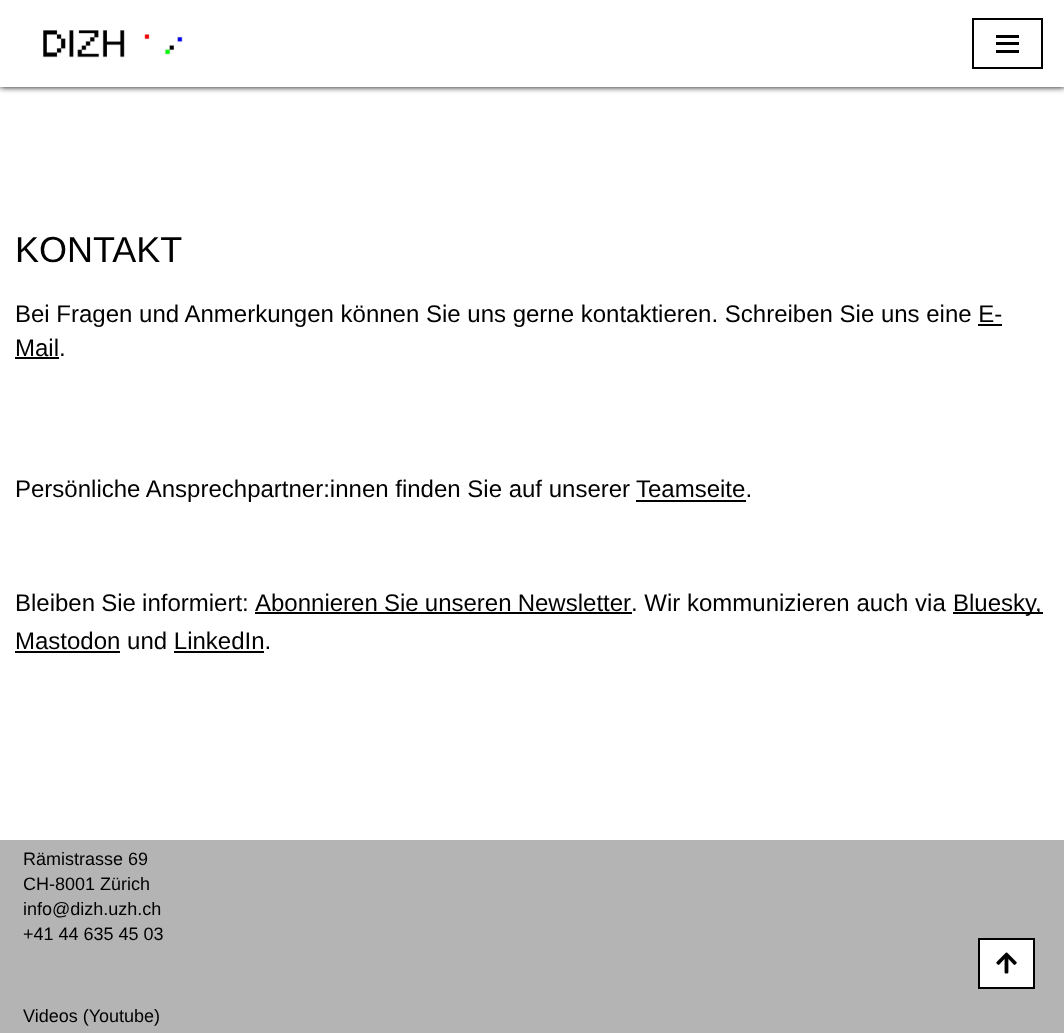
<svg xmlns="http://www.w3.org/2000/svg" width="1064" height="1033">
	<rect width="100%" height="100%" fill="#FFFFFF" />
	<rect x="0" y="0" width="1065" height="87" fill="#000000" filter="blur(3px)" />
	<rect x="0" y="0" width="1064" height="87" fill="#FFFFFF" />
	<image x="43" y="30" width="140" height="28" href="assets/img1.png" />
	<rect x="973" y="19" width="69" height="49" fill="none" stroke="#000000" stroke-width="2" />
	<rect x="996" y="35" width="23" height="3" fill="#000000" />
	<rect x="996" y="42" width="23" height="3" fill="#000000" />
	<rect x="996" y="50" width="23" height="3" fill="#000000" />
	<text x="15" y="262" font-family="Liberation Sans" font-size="36" fill="#000000">KONTAKT</text>
	<g font-family="Liberation Sans" font-size="24" fill="#000000">
		<text x="15" y="322">Bei Fragen und Anmerkungen können Sie uns gerne kontaktieren. Schreiben Sie uns eine E-</text>
		<text x="15" y="356">Mail.</text>
	</g>
	<rect x="978" y="324" width="24" height="2" fill="#000000" />
	<rect x="15" y="357" width="44" height="2" fill="#000000" />
	<g font-family="Liberation Sans" font-size="24" fill="#000000">
		<text x="15" y="497">Persönliche Ansprechpartner:innen finden Sie auf unserer</text>
		<text x="636" y="497">Teamseite.</text>
	</g>
	<rect x="636" y="500" width="110" height="2" fill="#000000" />
	<g font-family="Liberation Sans" font-size="24" fill="#000000">
		<text x="15" y="611" word-spacing="-0.5">Bleiben Sie informiert:</text>
		<text x="255" y="611" word-spacing="-0.5">Abonnieren Sie unseren Newsletter</text>
	</g>
	<rect x="255" y="612" width="377" height="2" fill="#000000" />
	<text x="631" y="611" font-family="Liberation Sans" font-size="24" fill="#000000">. Wir kommunizieren auch via</text>
	<rect x="953" y="612" width="82" height="2" fill="#000000" />
	<text x="953" y="611" font-family="Liberation Sans" font-size="24" fill="#000000">Bluesky</text>
	<rect x="1035" y="612" width="8" height="2" fill="#000000" />
	<g font-family="Liberation Sans" font-size="24" fill="#000000">
		<text x="1035" y="611">,</text>
		<text x="15" y="649">Mastodon und LinkedIn.</text>
	</g>
	<rect x="15" y="651" width="105" height="2" fill="#000000" />
	<rect x="174" y="651" width="90" height="2" fill="#000000" />
	<rect x="0" y="840" width="1064" height="193" fill="#B4B4B4" />
	<g font-family="Liberation Sans" font-size="18" fill="#000000">
		<text x="23" y="865">Rämistrasse 69</text>
		<text x="23" y="890">CH-8001 Zürich</text>
		<text x="23" y="915">info@dizh.uzh.ch</text>
		<text x="23" y="940">+41 44 635 45 03</text>
		<text x="23" y="1022">Videos (Youtube)</text>
	</g>
	<rect x="979" y="939" width="55" height="49" fill="#FFFFFF" stroke="#000000" stroke-width="2" />
	<image x="996" y="952" width="21" height="22" href="assets/img2.png" />
</svg>
